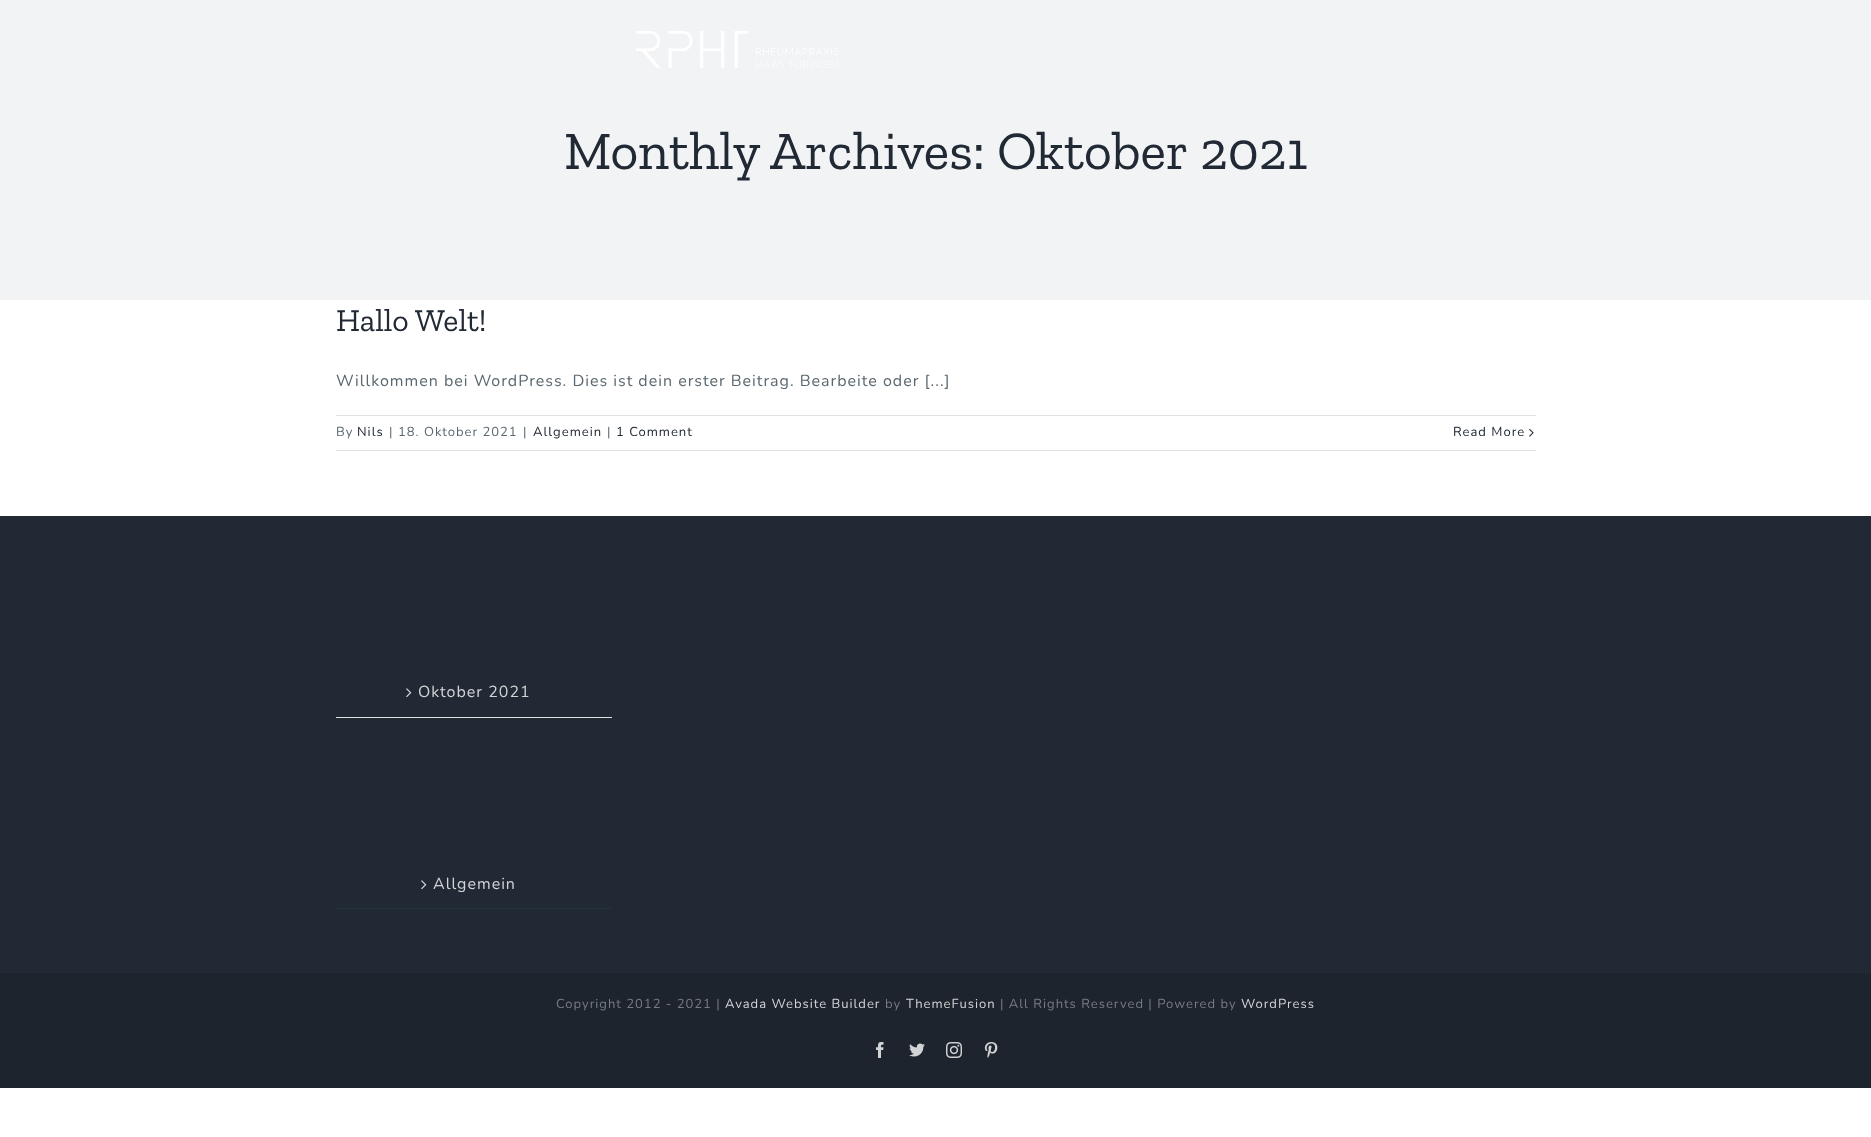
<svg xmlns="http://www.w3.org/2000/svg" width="1871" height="1137">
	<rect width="100%" height="100%" fill="#FFFFFF" />
	<rect x="0" y="0" width="1871" height="300" fill="#F2F3F5" />
	<image x="636" y="31" width="205" height="37" href="assets/img1.png" />
	<text x="564" y="169" font-family="Zilla Slab" font-size="54" fill="#212934">Monthly Archives: Oktober 2021</text>
	<text x="336" y="331" font-family="Zilla Slab" font-size="32" fill="#212934">Hallo Welt!</text>
	<text x="336" y="386" font-family="Nunito" font-size="16" font-weight="200" letter-spacing="1" fill="#5B6870">Willkommen bei WordPress. Dies ist dein erster Beitrag. Bearbeite oder [...]</text>
	<rect x="336" y="415" width="1200" height="1" fill="#E2E2E2" />
	<rect x="336" y="450" width="1200" height="1" fill="#E2E2E2" />
	<text x="336" y="436" font-family="Nunito" font-size="13" font-weight="200" letter-spacing="1" fill="#5B6870">By</text>
	<text x="357" y="436" font-family="Nunito" font-size="13" font-weight="200" letter-spacing="1" fill="#212934">Nils</text>
	<g font-family="Nunito" font-size="13" font-weight="200" letter-spacing="1" fill="#5B6870">
		<text x="389" y="436">|</text>
		<text x="398" y="436">18. Oktober 2021</text>
		<text x="523" y="436">|</text>
	</g>
	<text x="533" y="436" font-family="Nunito" font-size="13" font-weight="200" letter-spacing="1" fill="#212934">Allgemein</text>
	<text x="607" y="436" font-family="Nunito" font-size="13" font-weight="200" letter-spacing="1" fill="#5B6870">|</text>
	<g font-family="Nunito" font-size="13" font-weight="200" letter-spacing="1" fill="#212934">
		<text x="616" y="436">1 Comment</text>
		<text x="1453" y="436">Read More</text>
	</g>
	<image x="1529" y="428" width="5" height="9" href="assets/img2.png" />
	<rect x="0" y="516" width="1871" height="457" fill="#212934" />
	<rect x="336" y="717" width="276" height="1" fill="#E2E2E2" />
	<image x="406" y="688" width="6" height="10" href="assets/img3.png" />
	<text x="418" y="697" font-family="Nunito" font-size="16" font-weight="200" letter-spacing="1" fill="#D3D4D6">Oktober 2021</text>
	<rect x="336" y="908" width="276" height="1" fill="#26303E" />
	<image x="421" y="880" width="6" height="10" href="assets/img3.png" />
	<text x="433" y="889" font-family="Nunito" font-size="16" font-weight="200" letter-spacing="1" fill="#D3D4D6">Allgemein</text>
	<rect x="0" y="973" width="1871" height="115" fill="#1D242D" />
	<text x="556" y="1008" font-family="Nunito" font-size="13" font-weight="200" letter-spacing="1" fill="#777C81">Copyright 2012 - 2021 |</text>
	<text x="725" y="1008" font-family="Nunito" font-size="13" font-weight="200" letter-spacing="1" fill="#D3D4D6">Avada Website Builder</text>
	<text x="885" y="1008" font-family="Nunito" font-size="13" font-weight="200" letter-spacing="1" fill="#777C81">by</text>
	<text x="906" y="1008" font-family="Nunito" font-size="13" font-weight="200" letter-spacing="1" fill="#D3D4D6">ThemeFusion</text>
	<text x="1000" y="1008" font-family="Nunito" font-size="13" font-weight="200" letter-spacing="1" fill="#777C81">| All Rights Reserved | Powered by</text>
	<text x="1241" y="1008" font-family="Nunito" font-size="13" font-weight="200" letter-spacing="1" fill="#D3D4D6">WordPress</text>
	<image x="876" y="1042" width="8" height="16" href="assets/img4.png" />
	<image x="909" y="1043" width="16" height="14" href="assets/img5.png" />
	<image x="946" y="1042" width="16" height="16" href="assets/img6.png" />
	<image x="984" y="1042" width="14" height="16" href="assets/img7.png" />
</svg>
